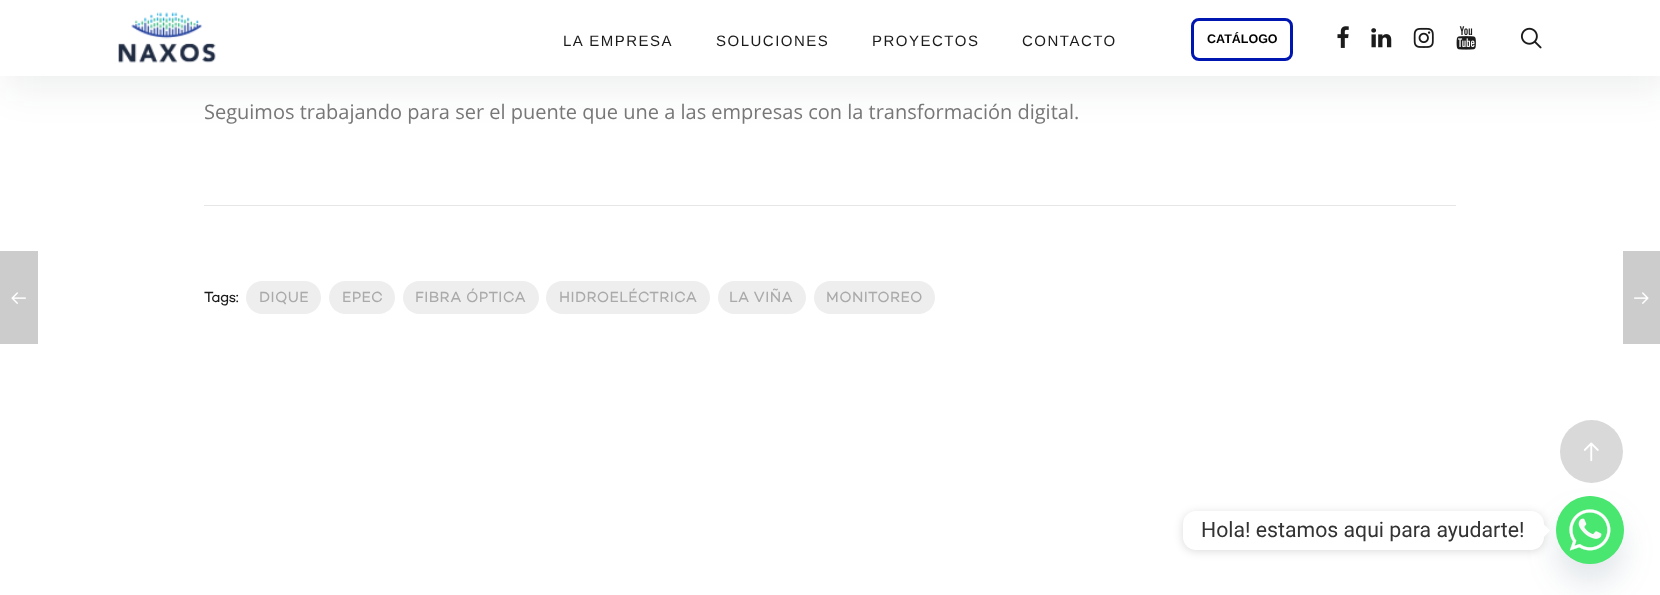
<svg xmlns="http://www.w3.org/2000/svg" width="1660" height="595">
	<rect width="100%" height="100%" fill="#FFFFFF" />
	<rect x="6" y="11" width="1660" height="77" fill="#1F2325" fill-opacity="0.08" filter="blur(19px)" />
	<rect x="0" y="0" width="1660" height="76" fill="#FFFFFF" />
	<image x="118" y="12" width="98" height="51" href="assets/img1.png" />
	<g font-family="Liberation Sans" font-size="15" letter-spacing="1.5" fill="#1B1B1B">
		<text x="563" y="46">LA EMPRESA</text>
		<text x="716" y="46">SOLUCIONES</text>
		<text x="872" y="46">PROYECTOS</text>
		<text x="1022" y="46">CONTACTO</text>
	</g>
	<rect x="1192.5" y="19.5" width="99" height="40" rx="6.5" fill="none" stroke="#0016B0" stroke-width="3" />
	<text x="1207" y="43" font-family="Liberation Sans" font-size="12.5" font-weight="700" fill="#000000">CATÁLOGO</text>
	<image x="1337" y="26" width="12" height="22" href="assets/img2.png" />
	<image x="1371" y="28" width="21" height="20" href="assets/img3.png" />
	<image x="1413" y="27" width="21" height="21" href="assets/img4.png" />
	<image x="1456" y="26" width="20" height="24" href="assets/img5.png" />
	<image x="1520" y="27" width="22" height="22" href="assets/img6.png" />
	<rect x="204" y="205" width="1252" height="1" fill="#E6E6E6" />
	<text x="204" y="119" font-family="Open Sans" font-size="20" fill="#777777">Seguimos trabajando para ser el puente que une a las empresas con la transformación digital.</text>
	<text x="204" y="302" font-family="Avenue" font-size="15" letter-spacing="-0.5" fill="#1B1B1B">Tags:</text>
	<rect x="246" y="281" width="75" height="33" rx="16.5" fill="#EEEEEE" />
	<text x="259" y="302" font-family="Avenue" font-size="15" letter-spacing="0.4" fill="#AAAAAA">DIQUE</text>
	<rect x="329" y="281" width="66" height="33" rx="16.5" fill="#EEEEEE" />
	<text x="342" y="302" font-family="Avenue" font-size="15" letter-spacing="0.4" fill="#AAAAAA">EPEC</text>
	<rect x="403" y="281" width="136" height="33" rx="16.5" fill="#EEEEEE" />
	<text x="415" y="302" font-family="Avenue" font-size="15" letter-spacing="0.4" fill="#AAAAAA">FIBRA ÓPTICA</text>
	<rect x="546" y="281" width="164" height="33" rx="16.5" fill="#EEEEEE" />
	<text x="559" y="302" font-family="Avenue" font-size="15" letter-spacing="0.4" fill="#AAAAAA">HIDROELÉCTRICA</text>
	<rect x="718" y="281" width="88" height="33" rx="16.5" fill="#EEEEEE" />
	<text x="729" y="302" font-family="Avenue" font-size="15" letter-spacing="0.4" fill="#AAAAAA">LA VIÑA</text>
	<rect x="814" y="281" width="121" height="33" rx="16.5" fill="#EEEEEE" />
	<text x="826" y="302" font-family="Avenue" font-size="15" letter-spacing="0.4" fill="#AAAAAA">MONITOREO</text>
	<rect x="0" y="251" width="38" height="93" fill="#CCCCCC" />
	<image x="11" y="292" width="15" height="12" href="assets/img7.png" />
	<rect x="1623" y="251" width="37" height="93" fill="#CCCCCC" />
	<image x="1634" y="292" width="15" height="12" href="assets/img8.png" />
	<circle cx="1591.5" cy="451.5" r="31.5" fill="#D9D9D9" />
	<image x="1584" y="442" width="15" height="20" href="assets/img9.png" />
	<rect x="1556" y="516" width="68" height="68" rx="34" fill="#49687E" fill-opacity="0.16" filter="blur(15px)" />
	<circle cx="1590" cy="530" r="34" fill="#49E670" />
	<image x="1556" y="496" width="68" height="68" href="assets/img10.png" />
	<rect x="1183" y="513" width="361" height="38" rx="13" fill="#000000" fill-opacity="0.15" filter="blur(5px)" />
	<rect x="1183" y="511" width="361" height="39" rx="13" fill="#FFFFFF" />
	<text x="1201" y="537" font-family="Roboto" font-size="21.25" fill="#333333">Hola! estamos aqui para ayudarte!</text>
	<path d="M1544 537V524.5L1550 530.5Z" fill="#FFFFFF" />
</svg>
